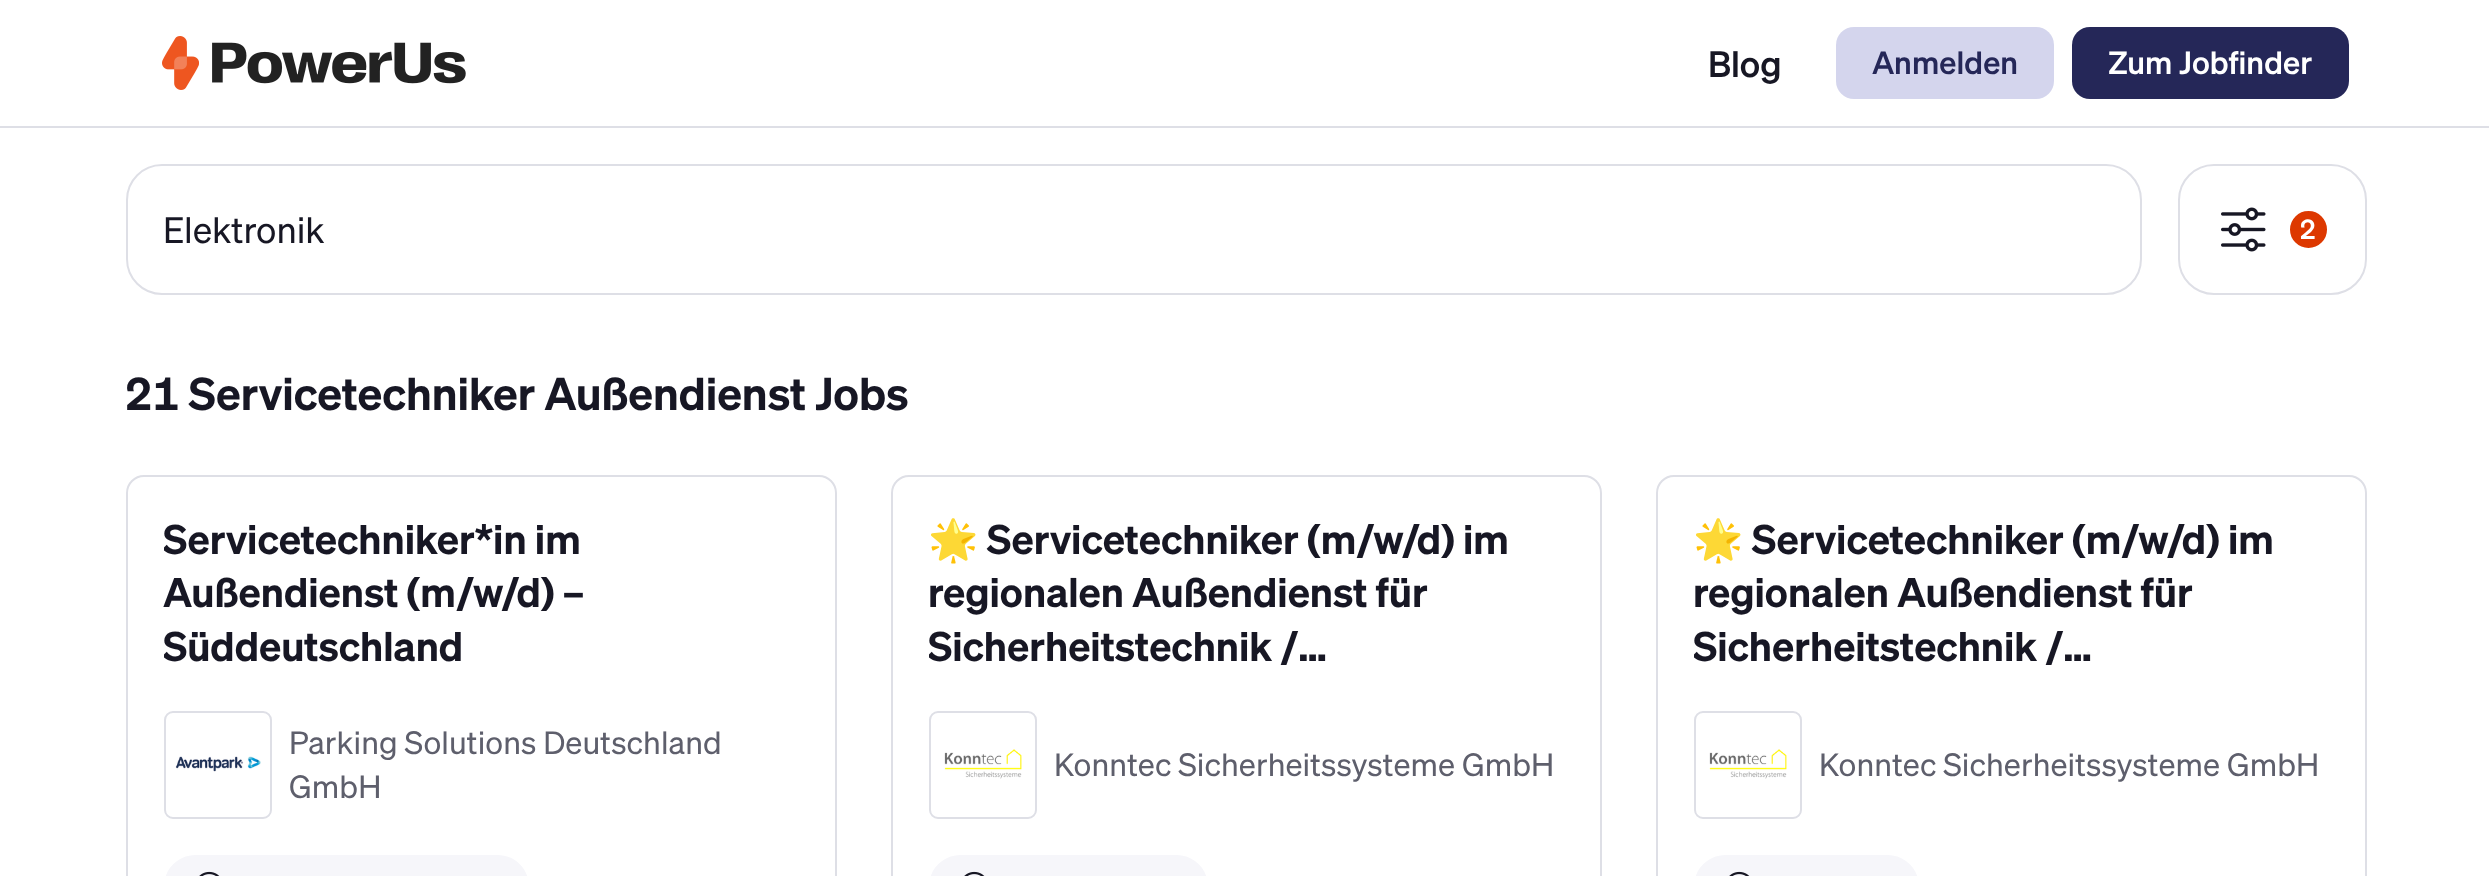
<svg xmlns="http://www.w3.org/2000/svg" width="2489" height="876">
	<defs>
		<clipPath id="clip1"><rect x="164" y="513" width="635" height="162" /></clipPath>
		<clipPath id="clip2"><rect x="929" y="513" width="635" height="162" /></clipPath>
		<clipPath id="clip3"><rect x="1694" y="513" width="635" height="162" /></clipPath>
	</defs>
	<rect width="100%" height="100%" fill="#FFFFFF" />
	<rect x="0" y="126" width="2489" height="2" fill="#DEDFE6" />
	<image x="162" y="36" width="304" height="54" href="assets/img1.png" />
	<text x="1708" y="77" font-family="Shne" font-size="36" font-weight="500" fill="#171724">Blog</text>
	<rect x="1836" y="27" width="218" height="72" rx="18" fill="#D4D5ED" />
	<text x="1872" y="74" font-family="Shne" font-size="31.5" font-weight="500" letter-spacing="0.1" fill="#252758">Anmelden</text>
	<rect x="2072" y="27" width="277" height="72" rx="18" fill="#252758" />
	<text x="2108" y="74" font-family="Shne" font-size="31.5" font-weight="500" letter-spacing="0.1" fill="#FFFFFF">Zum Jobfinder</text>
	<rect x="127" y="165" width="2014" height="129" rx="35" fill="none" stroke="#DEDFE6" stroke-width="2" />
	<text x="163" y="243" font-family="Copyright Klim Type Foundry" font-size="36" fill="#171724">Elektronik</text>
	<rect x="2179" y="165" width="187" height="129" rx="35" fill="none" stroke="#DEDFE6" stroke-width="2" />
	<image x="2221" y="207" width="45" height="45" href="assets/img2.png" />
	<circle cx="2308.5" cy="229.5" r="19.5" fill="#DD3800" stroke="#FFFFFF" stroke-width="2" />
	<text x="2300" y="239" font-family="Shne" font-size="27" font-weight="500" fill="#FFFFFF">2</text>
	<text x="125" y="410" font-family="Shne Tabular" font-size="45" font-weight="600" fill="#171724">21 Servicetechniker Außendienst Jobs</text>
	<rect x="127" y="476" width="709" height="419" rx="17" fill="none" stroke="#DEDFE6" stroke-width="2" />
	<g clip-path="url(#clip1)">
		<text x="163" y="554" font-family="Shne" font-size="40.5" font-weight="600" fill="#171724">Servicetechniker*in im</text>
	</g>
	<text x="163" y="607" font-family="Shne" font-size="40.5" font-weight="600" fill="#171724">Außendienst (m/w/d) –</text>
	<g clip-path="url(#clip1)">
		<text x="163" y="661" font-family="Shne" font-size="40.5" font-weight="600" fill="#171724">Süddeutschland</text>
	</g>
	<rect x="165" y="712" width="106" height="106" rx="8" fill="none" stroke="#DEDFE6" stroke-width="2" />
	<image x="175" y="756" width="86" height="16" href="assets/img3.png" />
	<g font-family="Copyright Klim Type Foundry" font-size="31.5" letter-spacing="0.1" fill="#5E5F6C">
		<text x="289" y="754">Parking Solutions Deutschland</text>
		<text x="289" y="798">GmbH</text>
	</g>
	<path d="M195.5 855H497.5C515 855 529 869 529 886.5V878H164V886.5C164 869 178 855 195.5 855Z" fill="#F6F6FA" />
	<image x="199" y="871" width="21" height="5" href="assets/img4.png" />
	<rect x="892" y="476" width="709" height="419" rx="17" fill="none" stroke="#DEDFE6" stroke-width="2" />
	<g clip-path="url(#clip2)">
		<text x="928" y="554" font-family="Noto Color Emoji" font-size="40.5" font-weight="700" fill="#171724">🌟</text>
	</g>
	<g font-family="Shne" font-size="40.5" font-weight="600" fill="#171724">
		<text x="987" y="554">Servicetechniker (m/w/d) im</text>
		<text x="928" y="607">regionalen Außendienst für</text>
	</g>
	<g clip-path="url(#clip2)">
		<text x="928" y="661" font-family="Shne" font-size="40.5" font-weight="600" fill="#171724">Sicherheitstechnik /…</text>
	</g>
	<rect x="930" y="712" width="106" height="106" rx="8" fill="none" stroke="#DEDFE6" stroke-width="2" />
	<image x="944" y="749" width="78" height="30" href="assets/img5.png" />
	<text x="1054" y="776" font-family="Copyright Klim Type Foundry" font-size="31.5" letter-spacing="0.1" fill="#5E5F6C">Konntec Sicherheitssysteme GmbH</text>
	<path d="M960.5 855H1176.5C1194 855 1208 869 1208 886.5V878H929V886.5C929 869 943 855 960.5 855Z" fill="#F6F6FA" />
	<image x="964" y="871" width="21" height="5" href="assets/img4.png" />
	<rect x="1657" y="476" width="709" height="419" rx="17" fill="none" stroke="#DEDFE6" stroke-width="2" />
	<g clip-path="url(#clip3)">
		<text x="1693" y="554" font-family="Noto Color Emoji" font-size="40.5" font-weight="700" fill="#171724">🌟</text>
	</g>
	<g font-family="Shne" font-size="40.5" font-weight="600" fill="#171724">
		<text x="1752" y="554">Servicetechniker (m/w/d) im</text>
		<text x="1693" y="607">regionalen Außendienst für</text>
	</g>
	<g clip-path="url(#clip3)">
		<text x="1693" y="661" font-family="Shne" font-size="40.5" font-weight="600" fill="#171724">Sicherheitstechnik /…</text>
	</g>
	<rect x="1695" y="712" width="106" height="106" rx="8" fill="none" stroke="#DEDFE6" stroke-width="2" />
	<image x="1709" y="749" width="78" height="30" href="assets/img5.png" />
	<text x="1819" y="776" font-family="Copyright Klim Type Foundry" font-size="31.5" letter-spacing="0.1" fill="#5E5F6C">Konntec Sicherheitssysteme GmbH</text>
	<path d="M1725.5 855H1887.5C1905 855 1919 869 1919 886.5V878H1694V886.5C1694 869 1708 855 1725.5 855Z" fill="#F6F6FA" />
	<image x="1729" y="871" width="21" height="5" href="assets/img4.png" />
</svg>
